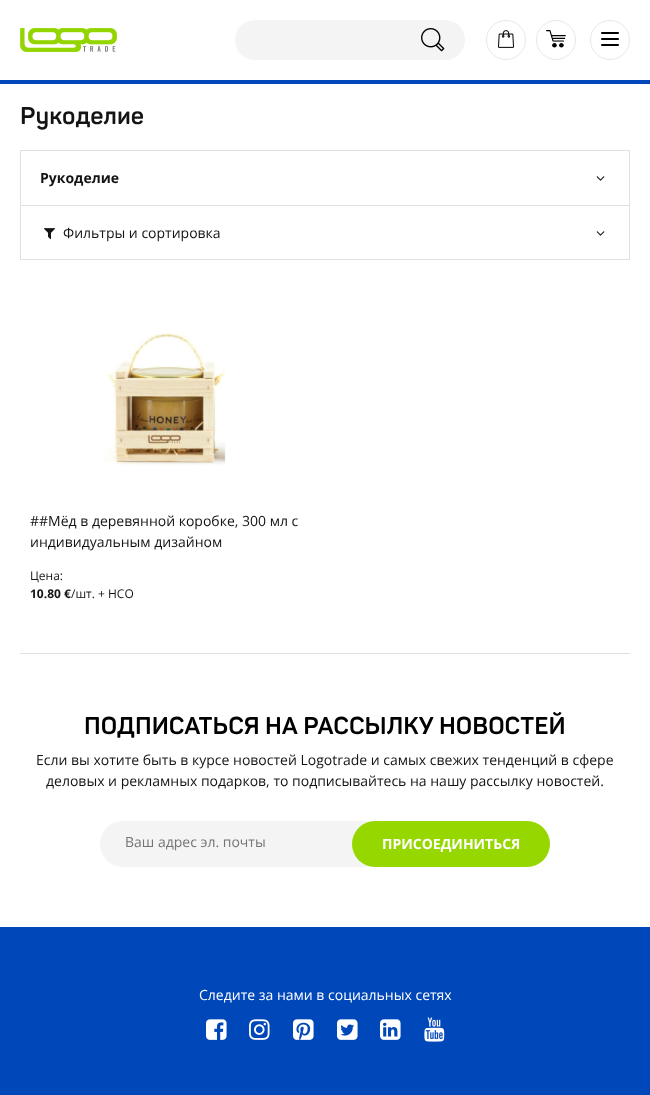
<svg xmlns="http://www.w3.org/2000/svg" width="650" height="1095">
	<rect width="100%" height="100%" fill="#FFFFFF" />
	<rect x="0" y="80" width="650" height="4" fill="#0047BA" />
	<image x="20" y="28" width="97" height="24" href="assets/img1.png" />
	<circle cx="506" cy="40" r="19.5" fill="none" stroke="#E8E8E8" />
	<image x="498" y="30" width="16" height="18" href="assets/img2.png" />
	<circle cx="556" cy="40" r="19.5" fill="none" stroke="#E8E8E8" />
	<image x="546" y="30" width="20" height="18" href="assets/img3.png" />
	<circle cx="610" cy="40" r="19.5" fill="none" stroke="#E8E8E8" />
	<image x="601" y="32" width="18" height="14" href="assets/img4.png" />
	<rect x="235" y="20" width="230" height="40" rx="20" fill="#F4F4F4" />
	<image x="421" y="28" width="24" height="24" href="assets/img5.png" />
	<rect x="20" y="653" width="610" height="1" fill="#E0E0E0" />
	<text x="20" y="124" font-family="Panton" font-size="24" font-weight="700" fill="#141414">Рукоделие</text>
	<rect x="20.5" y="150.5" width="609" height="55" fill="none" stroke="#E0E0E0" />
	<text x="40" y="183" font-family="Open Sans" font-size="14" font-weight="700" fill="#141414">Рукоделие</text>
	<image x="596" y="176" width="9" height="5" href="assets/img6.png" />
	<rect x="20.5" y="205.5" width="609" height="54" fill="none" stroke="#E0E0E0" />
	<image x="44" y="228" width="11" height="12" href="assets/img7.png" />
	<text x="63" y="238" font-family="Open Sans" font-size="14" fill="#141414">Фильтры и сортировка</text>
	<image x="596" y="231" width="9" height="5" href="assets/img6.png" />
	<image x="104" y="333" width="122" height="133" href="assets/img8.png" />
	<g font-family="Open Sans" font-size="14" fill="#141414">
		<text x="30" y="526">##Мёд в деревянной коробке, 300 мл с</text>
		<text x="30" y="547">индивидуальным дизайном</text>
	</g>
	<text x="30" y="580" font-family="Open Sans" font-size="12" fill="#141414">Цена:</text>
	<text x="30" y="598" font-family="Open Sans" font-size="12" font-weight="700" fill="#141414">10.80 €</text>
	<text x="71" y="598" font-family="Open Sans" font-size="12" fill="#141414">/шт. + НСО</text>
	<text x="84" y="734" font-family="Panton" font-size="24" font-weight="700" fill="#000000">ПОДПИСАТЬСЯ НА РАССЫЛКУ НОВОСТЕЙ</text>
	<g font-family="Open Sans" font-size="14" fill="#141414">
		<text x="36" y="765">Если вы хотите быть в курсе новостей Logotrade и самых свежих тенденций в сфере</text>
		<text x="46" y="786">деловых и рекламных подарков, то подписывайтесь на нашу рассылку новостей.</text>
	</g>
	<rect x="100" y="821" width="450" height="46" rx="23" fill="#F4F4F4" />
	<text x="125" y="847" font-family="Open Sans" font-size="14" fill="#757575">Ваш адрес эл. почты</text>
	<rect x="352" y="821" width="198" height="46" rx="23" fill="#97D700" />
	<text x="382" y="849" font-family="Open Sans" font-size="14" font-weight="700" fill="#FFFFFF">ПРИСОЕДИНИТЬСЯ</text>
	<rect x="0" y="927" width="650" height="168" fill="#0047BA" />
	<text x="199" y="1000" font-family="Open Sans" font-size="14" fill="#FFFFFF">Следите за нами в социальных сетях</text>
	<image x="206" y="1019" width="21" height="21" href="assets/img9.png" />
	<image x="249" y="1019" width="21" height="21" href="assets/img10.png" />
	<image x="293" y="1019" width="21" height="21" href="assets/img11.png" />
	<image x="337" y="1019" width="21" height="21" href="assets/img12.png" />
	<image x="380" y="1019" width="21" height="21" href="assets/img13.png" />
	<image x="424" y="1017" width="21" height="25" href="assets/img14.png" />
</svg>
